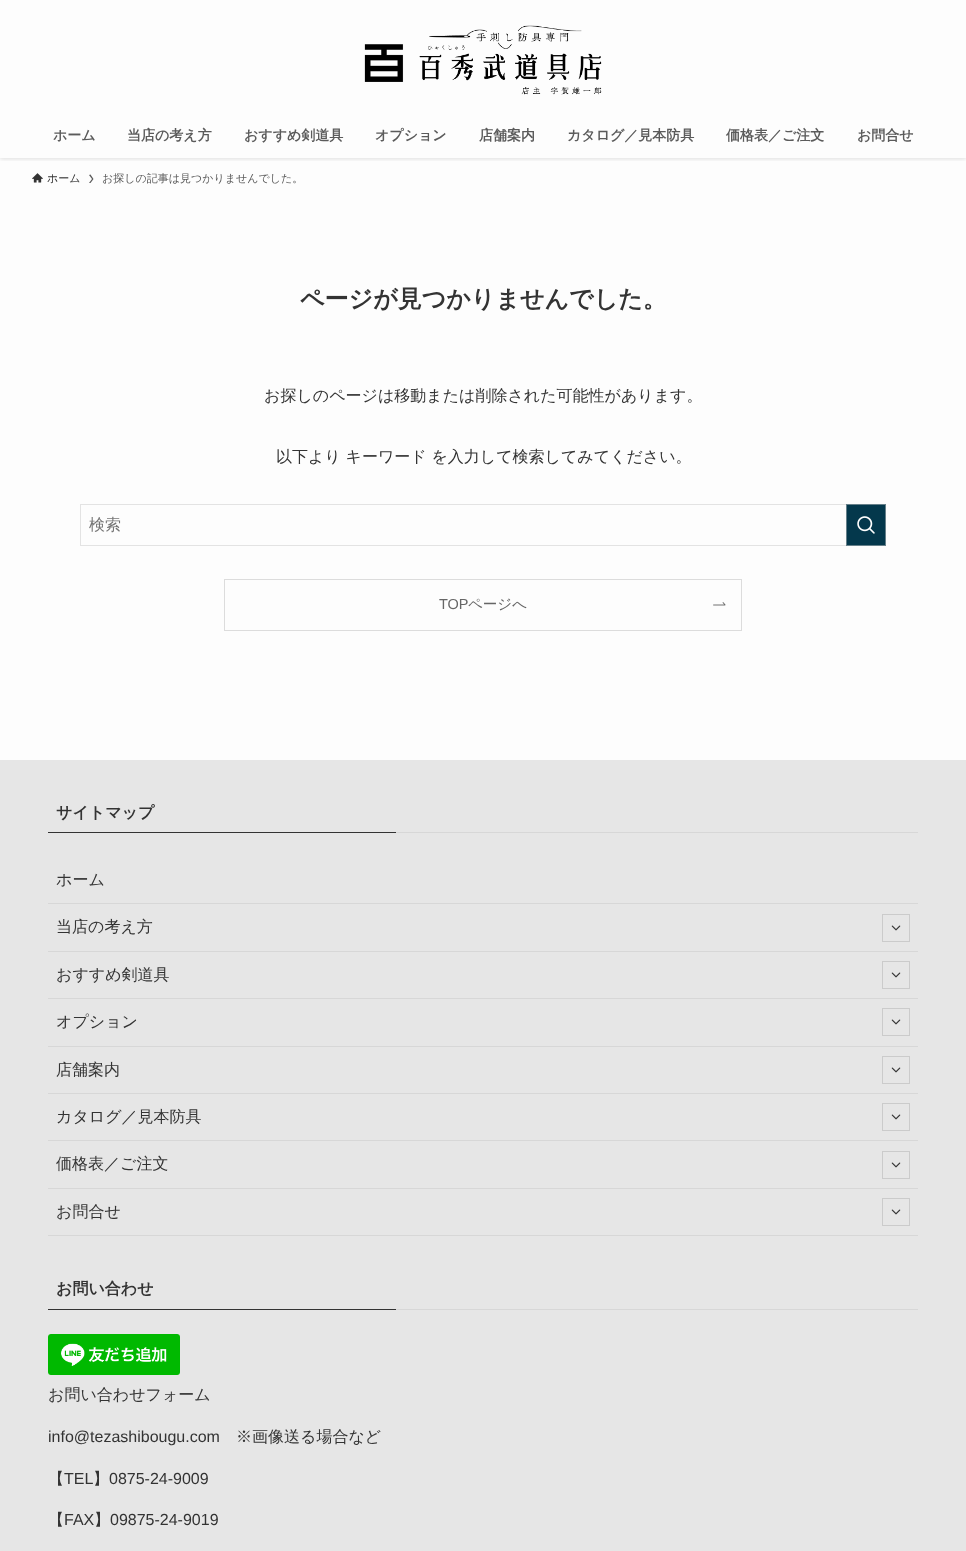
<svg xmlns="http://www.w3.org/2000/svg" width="966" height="1551">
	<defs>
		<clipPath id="clip1"><rect x="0" y="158" width="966" height="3" /></clipPath>
	</defs>
	<rect width="100%" height="100%" fill="#FDFDFD" />
	<g clip-path="url(#clip1)">
		<rect x="0" y="1" width="966" height="158" fill="#000000" fill-opacity="0.12" filter="blur(2px)" />
	</g>
	<image x="364" y="25" width="238" height="70" href="assets/img1.png" />
	<g font-family="WenQuanYi Zen Hei" font-size="14" font-weight="700" fill="#5B5B5B">
		<text x="53" y="140">ホーム</text>
		<text x="127" y="140">当店の考え方</text>
		<text x="244" y="140">おすすめ剣道具</text>
		<text x="375" y="140">オプション</text>
		<text x="479" y="140">店舗案内</text>
		<text x="567" y="140">カタログ／見本防具</text>
		<text x="726" y="140">価格表／ご注文</text>
		<text x="857" y="140">お問合せ</text>
	</g>
	<image x="32" y="173" width="11" height="10" href="assets/img2.png" />
	<text x="47" y="182" font-family="WenQuanYi Zen Hei" font-size="11" font-weight="500" fill="#333333">ホーム</text>
	<path d="M90.5 174.5L89 175L92 179L89 183H90.5L93.5 179Z" fill="#5B5B5B" />
	<text x="102" y="182" font-family="WenQuanYi Zen Hei" font-size="11" font-weight="500" fill="#5B5B5B">お探しの記事は見つかりませんでした。</text>
	<text x="300" y="307" font-family="WenQuanYi Zen Hei" font-size="24" font-weight="700" fill="#333333">ページが見つかりませんでした。</text>
	<g font-family="WenQuanYi Zen Hei" font-size="16" font-weight="500" fill="#333333">
		<text x="264" y="401">お探しのページは移動または削除された可能性があります。</text>
		<text x="276" y="462">以下より キーワード を入力して検索してみてください。</text>
	</g>
	<rect x="80.5" y="504.5" width="805" height="41" fill="none" stroke="#E3E3E3" />
	<text x="89" y="530" font-family="WenQuanYi Zen Hei" font-size="16" font-weight="500" fill="#757575">検索</text>
	<rect x="846.5" y="504.5" width="39" height="41" fill="#04384C" stroke="#66808A" />
	<image x="857" y="516" width="18" height="18" href="assets/img3.png" />
	<rect x="224.5" y="579.5" width="517" height="51" fill="none" stroke="#DCDCDC" />
	<text x="439" y="609" font-family="Liberation Sans" font-size="14.5" fill="#666666">TOP</text>
	<text x="468" y="609" font-family="WenQuanYi Zen Hei" font-size="14.5" font-weight="500" fill="#666666">ページへ</text>
	<image x="713" y="602" width="13" height="4" href="assets/img4.png" />
	<rect x="0" y="760" width="966" height="791" fill="#E6E6E6" />
	<text x="56" y="818" font-family="WenQuanYi Zen Hei" font-size="16" font-weight="700" fill="#333333">サイトマップ</text>
	<rect x="48" y="832" width="348" height="1" fill="#333333" />
	<rect x="396" y="832" width="522" height="1" fill="#D7D7D7" />
	<rect x="48" y="903" width="870" height="1" fill="#D7D7D7" />
	<text x="56" y="885" font-family="WenQuanYi Zen Hei" font-size="16" font-weight="500" fill="#333333">ホーム</text>
	<rect x="48" y="951" width="870" height="1" fill="#D7D7D7" />
	<text x="56" y="932" font-family="WenQuanYi Zen Hei" font-size="16" font-weight="500" fill="#333333">当店の考え方</text>
	<image x="891" y="925" width="10" height="6" href="assets/img5.png" />
	<rect x="882.5" y="914.5" width="27" height="27" fill="none" stroke="#CBCBCB" />
	<rect x="48" y="998" width="870" height="1" fill="#D7D7D7" />
	<text x="56" y="980" font-family="WenQuanYi Zen Hei" font-size="16" font-weight="500" fill="#333333">おすすめ剣道具</text>
	<image x="891" y="972" width="10" height="6" href="assets/img5.png" />
	<rect x="882.5" y="961.5" width="27" height="27" fill="none" stroke="#CBCBCB" />
	<rect x="48" y="1046" width="870" height="1" fill="#D7D7D7" />
	<text x="56" y="1027" font-family="WenQuanYi Zen Hei" font-size="16" font-weight="500" fill="#333333">オプション</text>
	<image x="891" y="1019" width="10" height="6" href="assets/img5.png" />
	<rect x="882.5" y="1008.5" width="27" height="27" fill="none" stroke="#CBCBCB" />
	<rect x="48" y="1093" width="870" height="1" fill="#D7D7D7" />
	<text x="56" y="1075" font-family="WenQuanYi Zen Hei" font-size="16" font-weight="500" fill="#333333">店舗案内</text>
	<image x="891" y="1067" width="10" height="6" href="assets/img5.png" />
	<rect x="882.5" y="1056.5" width="27" height="27" fill="none" stroke="#CBCBCB" />
	<rect x="48" y="1140" width="870" height="1" fill="#D7D7D7" />
	<text x="56" y="1122" font-family="WenQuanYi Zen Hei" font-size="16" font-weight="500" fill="#333333">カタログ／見本防具</text>
	<image x="891" y="1114" width="10" height="6" href="assets/img5.png" />
	<rect x="882.5" y="1103.5" width="27" height="27" fill="none" stroke="#CBCBCB" />
	<rect x="48" y="1188" width="870" height="1" fill="#D7D7D7" />
	<text x="56" y="1169" font-family="WenQuanYi Zen Hei" font-size="16" font-weight="500" fill="#333333">価格表／ご注文</text>
	<image x="891" y="1162" width="10" height="6" href="assets/img5.png" />
	<rect x="882.5" y="1151.5" width="27" height="27" fill="none" stroke="#CBCBCB" />
	<rect x="48" y="1235" width="870" height="1" fill="#D7D7D7" />
	<text x="56" y="1217" font-family="WenQuanYi Zen Hei" font-size="16" font-weight="500" fill="#333333">お問合せ</text>
	<image x="891" y="1209" width="10" height="6" href="assets/img5.png" />
	<rect x="882.5" y="1198.5" width="27" height="27" fill="none" stroke="#CBCBCB" />
	<text x="56" y="1294" font-family="WenQuanYi Zen Hei" font-size="16" font-weight="700" fill="#333333">お問い合わせ</text>
	<rect x="48" y="1309" width="348" height="1" fill="#333333" />
	<rect x="396" y="1309" width="522" height="1" fill="#D7D7D7" />
	<image x="48" y="1334" width="132" height="41" href="assets/img6.png" />
	<text x="48" y="1400" font-family="WenQuanYi Zen Hei" font-size="16" font-weight="500" fill="#333333">お問い合わせフォーム</text>
	<text x="48" y="1442" font-family="Liberation Sans" font-size="16" fill="#333333">info@tezashibougu.com</text>
	<g font-family="WenQuanYi Zen Hei" font-size="16" font-weight="500" fill="#333333">
		<text x="236" y="1442">※画像送る場合など</text>
		<text x="48" y="1484">【</text>
	</g>
	<text x="64" y="1484" font-family="Liberation Sans" font-size="16" fill="#333333">TEL</text>
	<text x="93" y="1484" font-family="WenQuanYi Zen Hei" font-size="16" font-weight="500" fill="#333333">】</text>
	<text x="109" y="1484" font-family="Liberation Sans" font-size="16" fill="#333333">0875-24-9009</text>
	<text x="48" y="1525" font-family="WenQuanYi Zen Hei" font-size="16" font-weight="500" fill="#333333">【</text>
	<text x="64" y="1525" font-family="Liberation Sans" font-size="16" fill="#333333">FAX</text>
	<text x="94" y="1525" font-family="WenQuanYi Zen Hei" font-size="16" font-weight="500" fill="#333333">】</text>
	<text x="110" y="1525" font-family="Liberation Sans" font-size="16" fill="#333333">09875-24-9019</text>
</svg>
